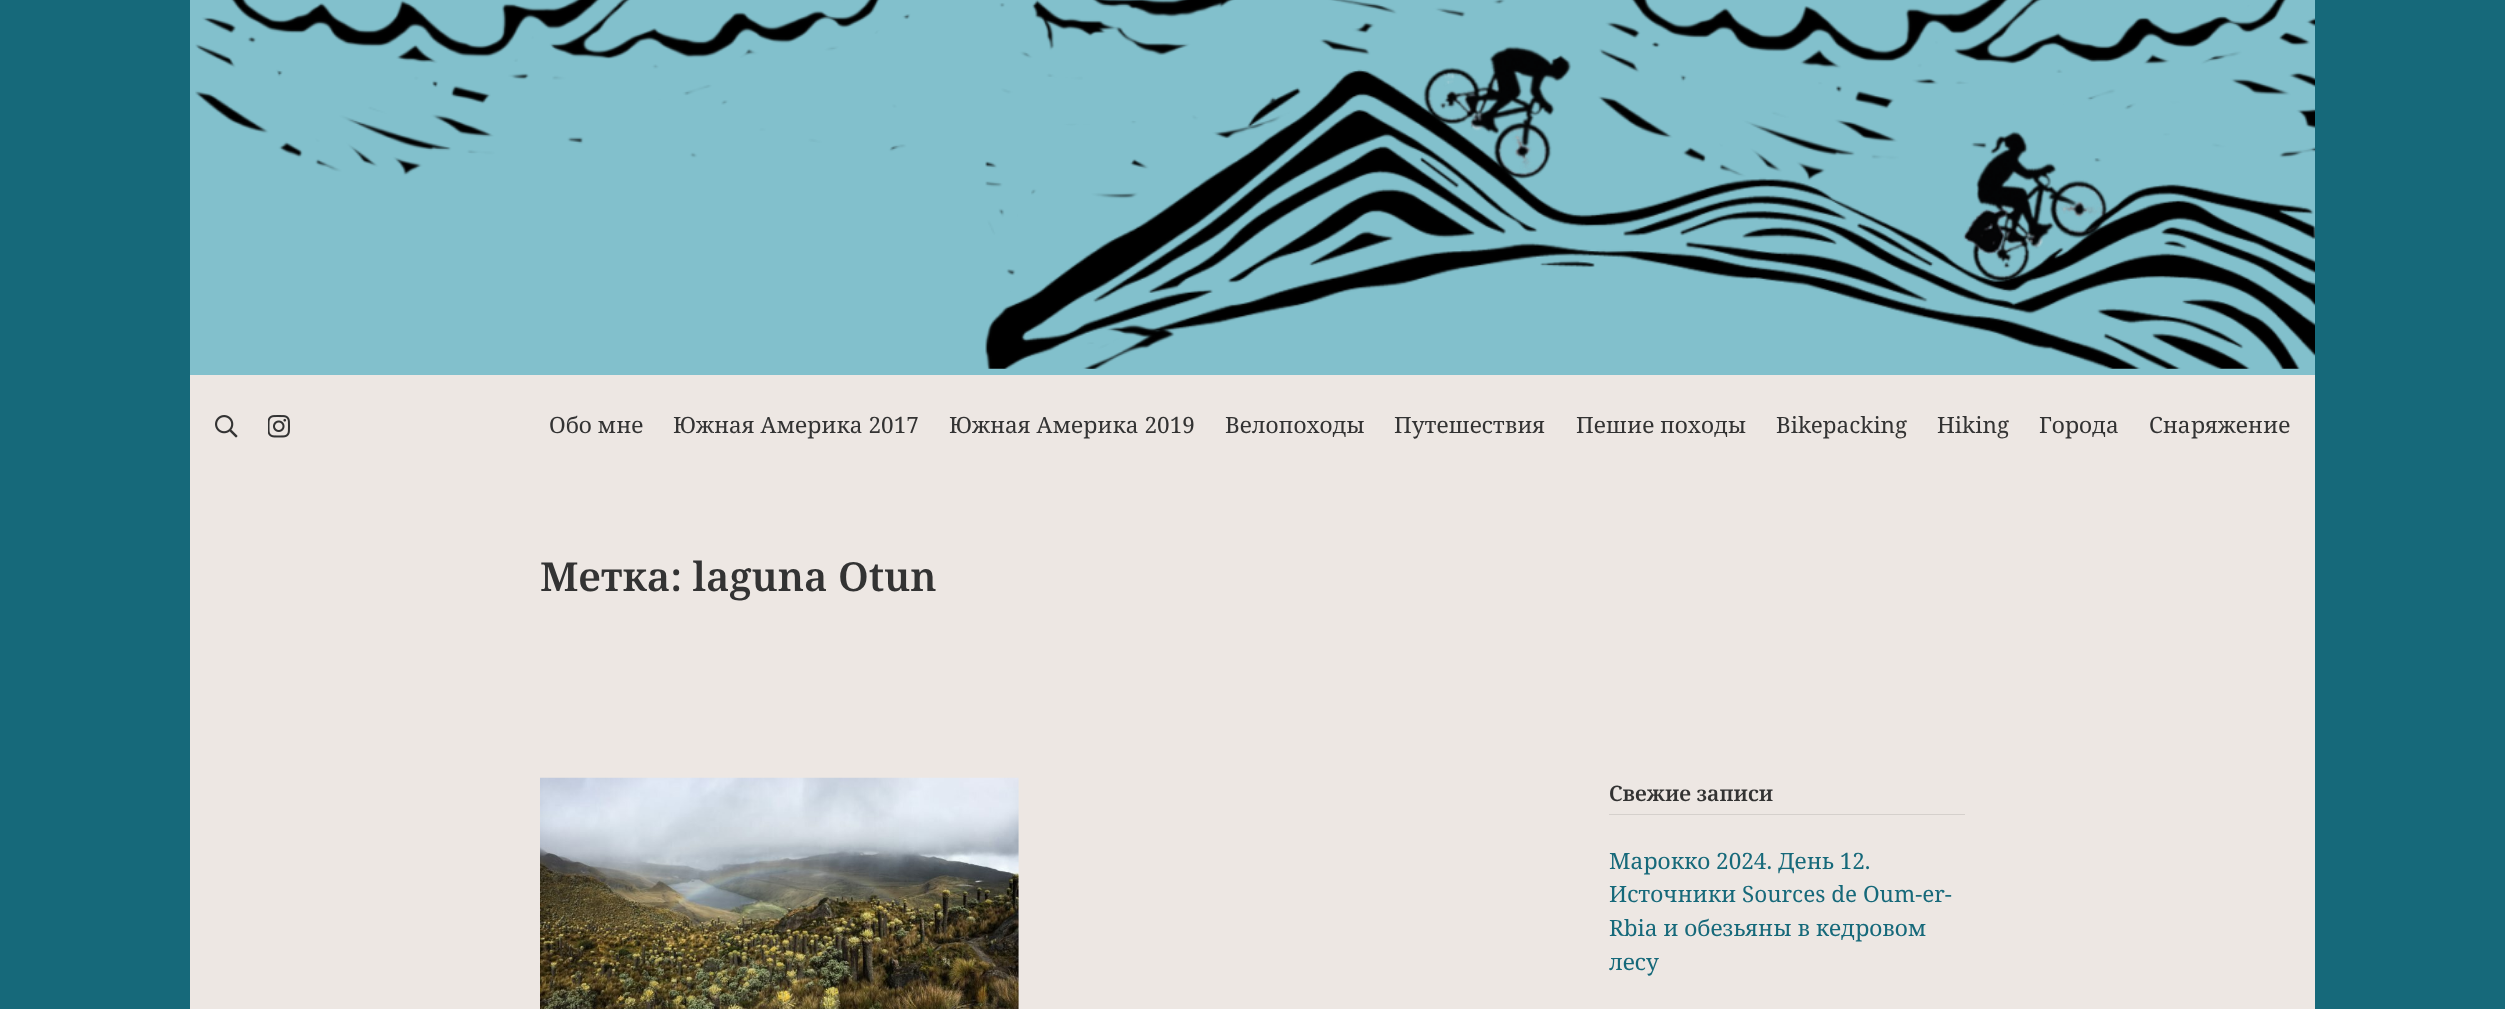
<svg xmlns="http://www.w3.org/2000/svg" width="2505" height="1009">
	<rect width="100%" height="100%" fill="#16697A" />
	<rect x="190" y="375" width="2125" height="634" fill="#EDE7E3" />
	<rect x="190" y="0" width="2125" height="375" fill="#82C0CC" />
	<image x="195" y="0" width="2120" height="369" href="assets/img1.png" />
	<image x="215" y="415" width="23" height="23" href="assets/img2.png" />
	<image x="268" y="415" width="22" height="23" href="assets/img3.png" />
	<g font-family="Noto Serif" font-size="22.5" fill="#333333">
		<text x="549" y="433">Обо мне</text>
		<text x="673" y="433">Южная Америка 2017</text>
		<text x="949" y="433">Южная Америка 2019</text>
		<text x="1225" y="433">Велопоходы</text>
		<text x="1394" y="433">Путешествия</text>
		<text x="1576" y="433">Пешие походы</text>
		<text x="1776" y="433">Bikepacking</text>
		<text x="1937" y="433">Hiking</text>
		<text x="2039" y="433">Города</text>
		<text x="2149" y="433">Снаряжение</text>
	</g>
	<text x="540" y="591" font-family="Noto Serif" font-size="40" font-weight="600" fill="#333333">Метка: laguna Otun</text>
	<image x="540" y="777" width="479" height="232" href="assets/img4.png" />
	<rect x="1609" y="814" width="356" height="1" fill="#D5D0CC" />
	<text x="1609" y="801" font-family="Noto Serif" font-size="21.25" font-weight="600" fill="#333333">Свежие записи</text>
	<g font-family="Noto Serif" font-size="22.5" fill="#16697A">
		<text x="1609" y="869">Марокко 2024. День 12.</text>
		<text x="1609" y="902">Источники Sources de Oum-er-</text>
		<text x="1609" y="936">Rbia и обезьяны в кедровом</text>
		<text x="1609" y="970">лесу</text>
	</g>
</svg>
